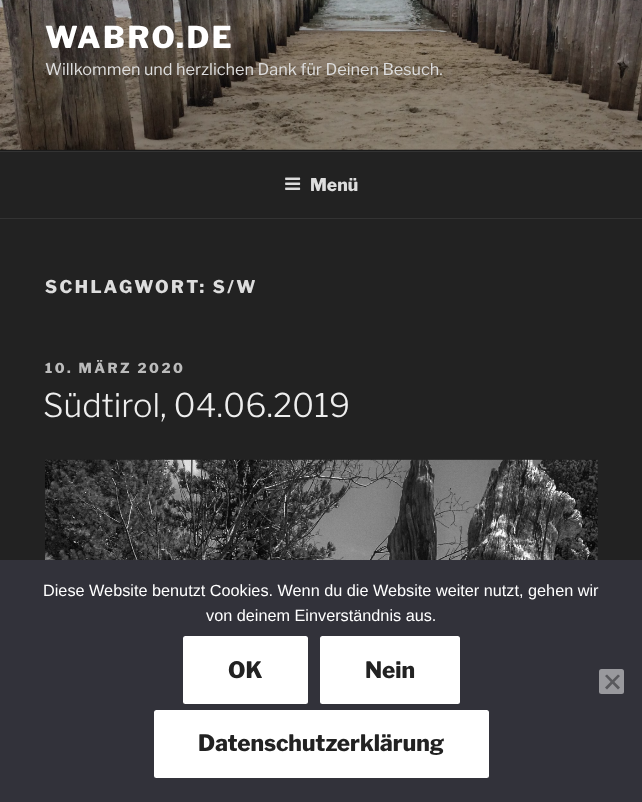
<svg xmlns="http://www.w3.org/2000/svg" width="642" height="802">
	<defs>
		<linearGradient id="g1" gradientUnits="userSpaceOnUse" x1="321" y1="-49" x2="321" y2="151"><stop offset="0" stop-color="#000000" stop-opacity="0" /><stop offset="0.75" stop-color="#000000" stop-opacity="0.3" /><stop offset="1" stop-color="#000000" stop-opacity="0.3" /></linearGradient>
	</defs>
	<rect width="100%" height="100%" fill="#222222" />
	<rect x="0" y="149" width="642" height="2" fill="#262626" />
	<image x="0" y="0" width="642" height="150" href="assets/img1.png" />
	<rect x="0" y="0" width="642" height="151" fill="url(#g1)" />
	<text x="45" y="48" font-family="Libre Franklin" font-size="30" font-weight="800" letter-spacing="2.5" fill="#FFFFFF">WABRO.DE</text>
	<text x="45" y="75" font-family="Libre Franklin" font-size="16.25" fill="#DDDDDD">Willkommen und herzlichen Dank für Deinen Besuch.</text>
	<rect x="0" y="151" width="642" height="1" fill="#333333" />
	<rect x="0" y="218" width="642" height="1" fill="#333333" />
	<image x="285" y="177" width="16" height="13" href="assets/img2.png" />
	<text x="310" y="191" font-family="Libre Franklin" font-size="17.5" font-weight="800" fill="#DDDDDD">Menü</text>
	<text x="45" y="293" font-family="Libre Franklin" font-size="17.5" font-weight="800" letter-spacing="2.5" fill="#DDDDDD">SCHLAGWORT: S/W</text>
	<text x="45" y="373" font-family="Libre Franklin" font-size="13.75" font-weight="800" letter-spacing="2.5" fill="#BBBBBB">10. MÄRZ 2020</text>
	<text x="43" y="417" font-family="Libre Franklin" font-size="32.5" font-weight="300" fill="#EEEEEE">Südtirol, 04.06.2019</text>
	<image x="45" y="459" width="553" height="101" href="assets/img3.png" />
	<rect x="0" y="560" width="642" height="242" fill="#32323A" />
	<g font-family="Liberation Sans" font-size="16.25" fill="#FFFFFF">
		<text x="43" y="596">Diese Website benutzt Cookies. Wenn du die Website weiter nutzt, gehen wir</text>
		<text x="206" y="621">von deinem Einverständnis aus.</text>
	</g>
	<rect x="183" y="636" width="125" height="68" rx="2.5" fill="#FFFFFF" />
	<text x="228" y="678" font-family="Libre Franklin" font-size="22.5" font-weight="800" fill="#222222">OK</text>
	<rect x="320" y="636" width="140" height="68" rx="2.5" fill="#FFFFFF" />
	<text x="365" y="678" font-family="Libre Franklin" font-size="22.5" font-weight="800" fill="#222222">Nein</text>
	<rect x="154" y="710" width="335" height="68" rx="2.5" fill="#FFFFFF" />
	<text x="198" y="751" font-family="Libre Franklin" font-size="22.5" font-weight="800" fill="#222222">Datenschutzerklärung</text>
	<rect x="599" y="669" width="25" height="25" rx="2.5" fill="#99999D" />
	<path d="M618 674.5L620 676L607 689.5L605 687.5Z" fill="#59595D" />
	<path d="M605 676L607 674.5L620 687.5L618 689.5Z" fill="#59595D" />
</svg>
